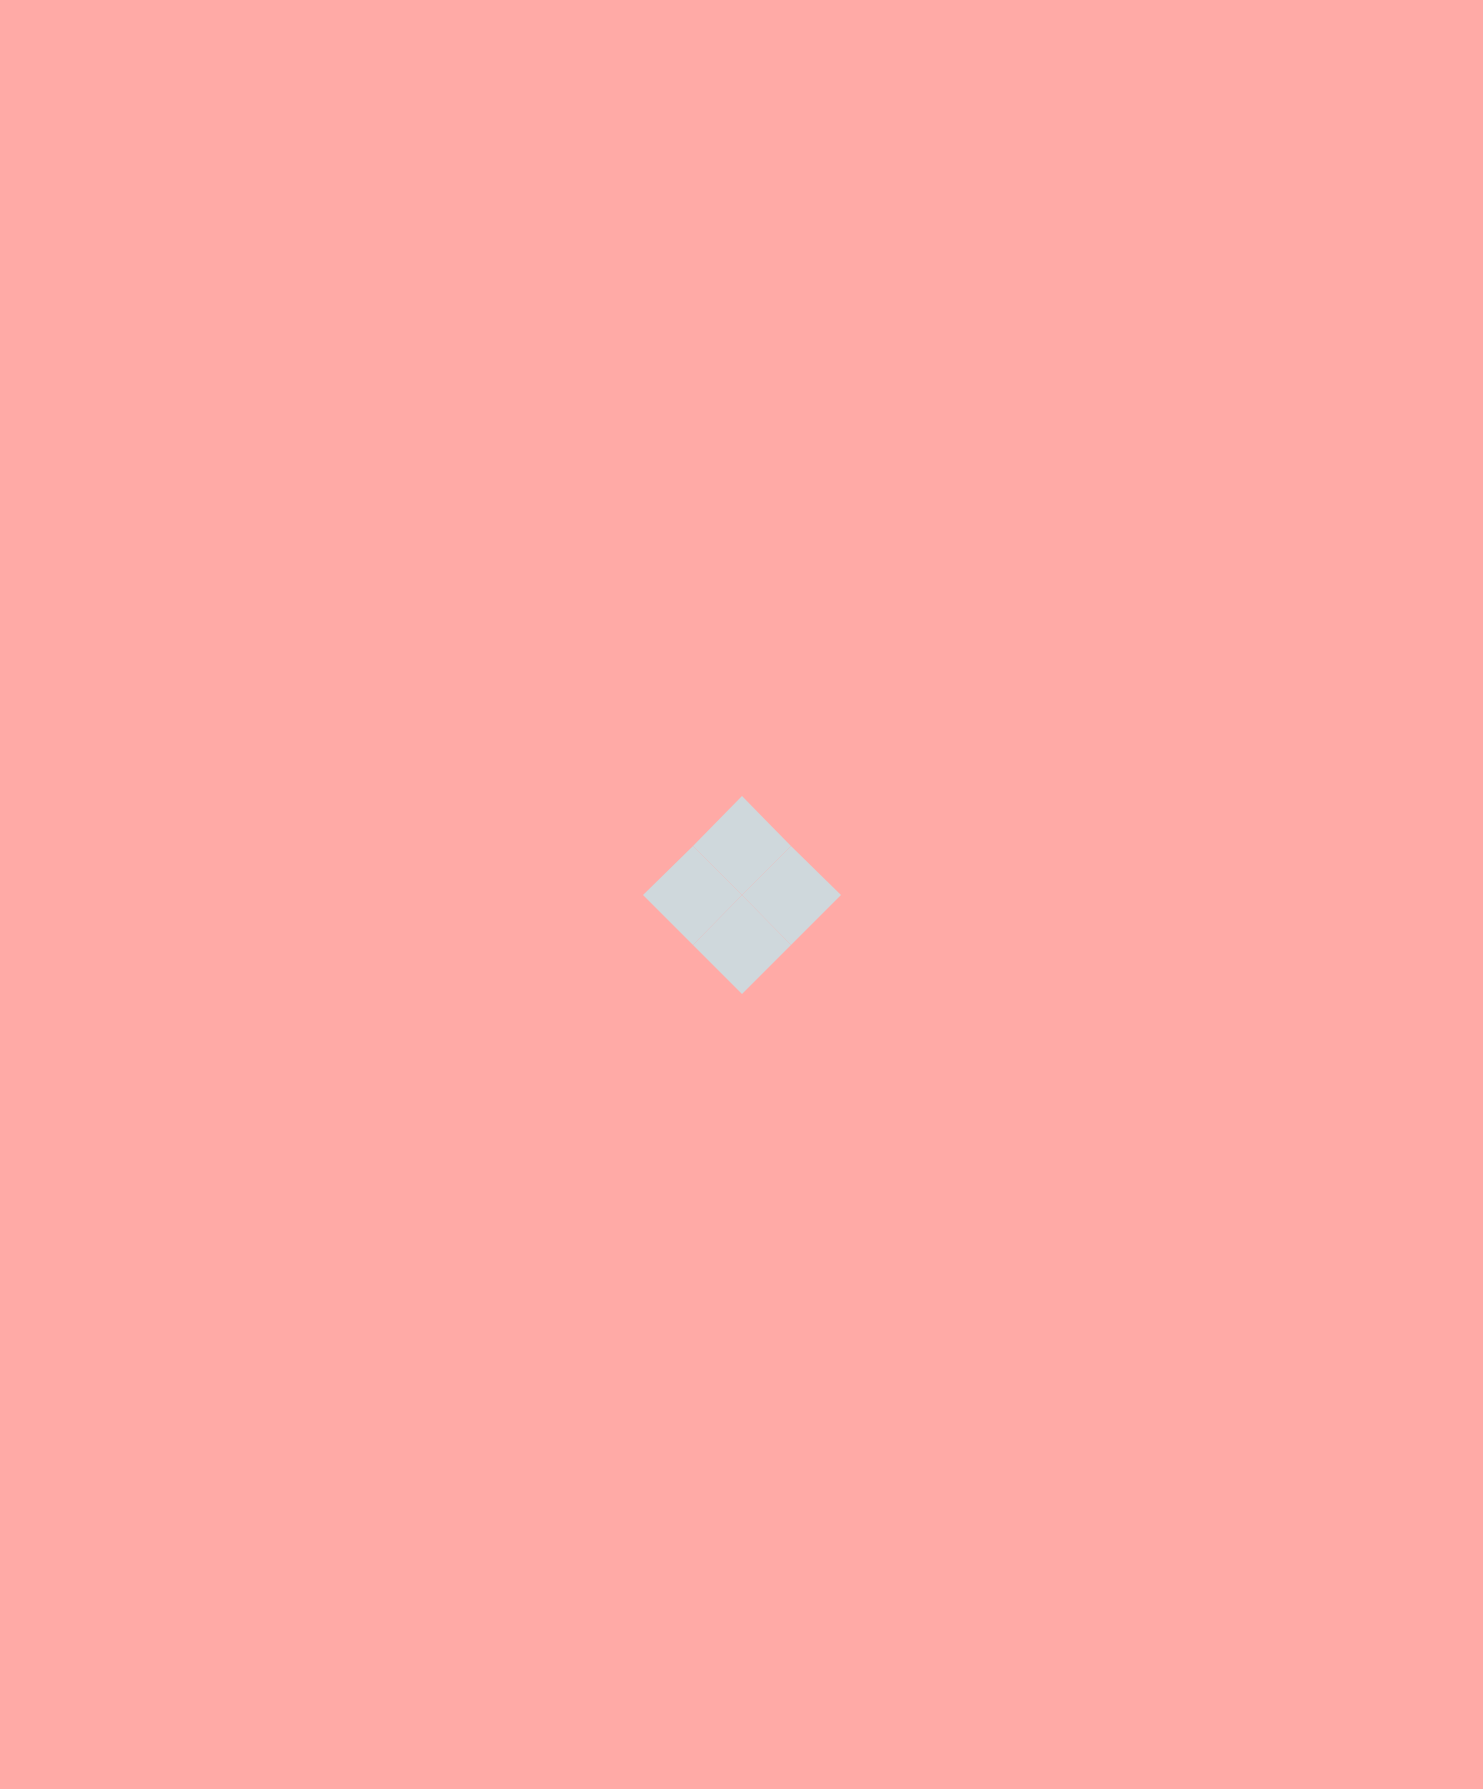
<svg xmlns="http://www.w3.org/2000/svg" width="1483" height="1789">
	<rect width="100%" height="100%" fill="#FFAAA6" />
	<path d="M742 796L791 846L742 895L693 846Z" fill="#CFD8DC" />
	<path d="M791 846L841 895L791 945L742 895Z" fill="#CFD8DC" />
	<path d="M742 895L791 945L742 994L693 945Z" fill="#CFD8DC" />
	<path d="M693 846L742 895L693 945L643 895Z" fill="#CFD8DC" />
</svg>
